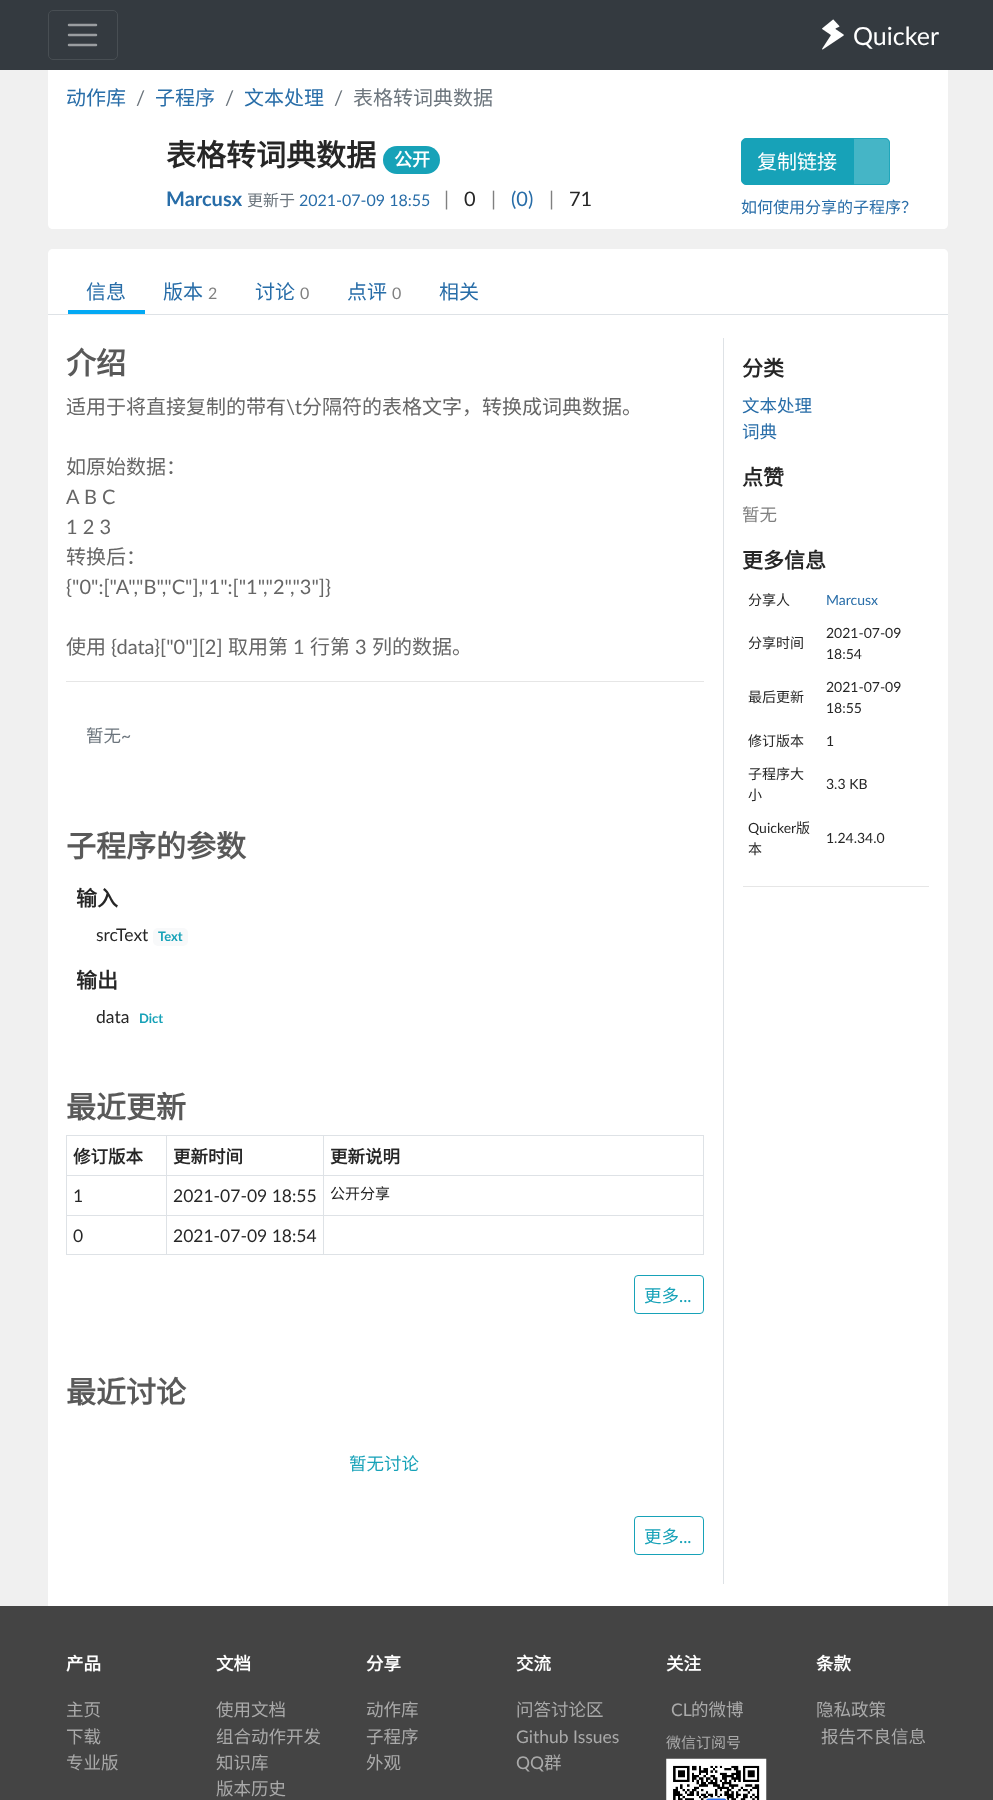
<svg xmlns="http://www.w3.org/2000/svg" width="993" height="1800">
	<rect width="100%" height="100%" fill="#F0F0F0" />
	<path d="M48 68H948V224C948 227 946 229 943 229H53C50 229 48 227 48 224Z" fill="#FFFFFF" />
	<rect x="0" y="0" width="993" height="70" fill="#343A40" />
	<rect x="48.5" y="10.5" width="69" height="49" rx="4.5" fill="none" stroke="#484E53" />
	<path d="M69 25H96M69 35H96M69 45H96" fill="none" stroke="#9A9DA0" stroke-width="2.5" stroke-linecap="round" />
	<image x="822" y="19" width="22" height="31" href="assets/img1.png" />
	<text x="853" y="45" font-family="Lato" font-size="25" fill="#FFFFFF">Quicker</text>
	<text x="66" y="105" font-family="Noto Sans CJK SC" font-size="20" fill="#286DA8">动作库</text>
	<text x="136" y="105" font-family="Lato" font-size="20" fill="#6C757D">/</text>
	<text x="155" y="105" font-family="Noto Sans CJK SC" font-size="20" fill="#286DA8">子程序</text>
	<text x="225" y="105" font-family="Lato" font-size="20" fill="#6C757D">/</text>
	<text x="244" y="105" font-family="Noto Sans CJK SC" font-size="20" fill="#286DA8">文本处理</text>
	<text x="334" y="105" font-family="Lato" font-size="20" fill="#6C757D">/</text>
	<text x="353" y="105" font-family="Noto Sans CJK SC" font-size="20" fill="#6C757D">表格转词典数据</text>
	<text x="166" y="166" font-family="Noto Sans CJK SC" font-size="30" font-weight="700" fill="#262626">表格转词典数据</text>
	<rect x="383" y="146" width="57" height="28" rx="14" fill="#17A2B8" />
	<text x="394" y="166" font-family="Noto Sans CJK SC" font-size="18" font-weight="700" fill="#FFFFFF">公开</text>
	<text x="166" y="206" font-family="Lato" font-size="20" font-weight="700" fill="#286DA8">Marcusx</text>
	<text x="247" y="206" font-family="Noto Sans CJK SC" font-size="16" fill="#6C757D">更新于</text>
	<text x="299" y="206" font-family="Lato" font-size="16" fill="#286DA8">2021-07-09 18:55</text>
	<text x="444" y="206" font-family="Lato" font-size="20" fill="#808080">|</text>
	<text x="464" y="206" font-family="Lato" font-size="20" fill="#262626">0</text>
	<text x="491" y="206" font-family="Lato" font-size="20" fill="#808080">|</text>
	<text x="511" y="206" font-family="Lato" font-size="20" fill="#286DA8">(0)</text>
	<text x="549" y="206" font-family="Lato" font-size="20" fill="#808080">|</text>
	<text x="569" y="206" font-family="Lato" font-size="20" fill="#262626">71</text>
	<path d="M746 138.5H853.5V184.5H746C743.5 184.5 741.5 182.5 741.5 180V143C741.5 140.5 743.5 138.5 746 138.5Z" fill="#17A2B8" stroke="#17A2B8" />
	<text x="757" y="169" font-family="Noto Sans CJK SC" font-size="20" fill="#FFFFFF">复制链接</text>
	<path d="M853 138H885C888 138 890 140 890 143V180C890 183 888 185 885 185H853Z" fill="#17A2B8" fill-opacity="0.8" />
	<path d="M853.5 138.5H885C887.5 138.5 889.5 140.5 889.5 143V180C889.5 182.5 887.5 184.5 885 184.5H853.5Z" fill="none" stroke="#17A2B8" stroke-opacity="0.8" />
	<text x="741" y="213" font-family="Noto Sans CJK SC" font-size="16" fill="#286DA8">如何使用分享的子程序？</text>
	<path d="M53 249H943C946 249 948 251 948 254V1606H48V254C48 251 50 249 53 249Z" fill="#FFFFFF" />
	<rect x="48" y="314" width="900" height="1" fill="#DEE2E6" />
	<rect x="68" y="310" width="77" height="4" fill="#03A9F4" />
	<g font-family="Noto Sans CJK SC" font-size="20" fill="#286DA8">
		<text x="86" y="299">信息</text>
		<text x="163" y="299">版本</text>
	</g>
	<text x="208" y="299" font-family="Lato" font-size="16" fill="#808080">2</text>
	<text x="255" y="299" font-family="Noto Sans CJK SC" font-size="20" fill="#286DA8">讨论</text>
	<text x="300" y="299" font-family="Lato" font-size="16" fill="#808080">0</text>
	<text x="347" y="299" font-family="Noto Sans CJK SC" font-size="20" fill="#286DA8">点评</text>
	<text x="392" y="299" font-family="Lato" font-size="16" fill="#808080">0</text>
	<text x="439" y="299" font-family="Noto Sans CJK SC" font-size="20" fill="#286DA8">相关</text>
	<text x="66" y="374" font-family="Noto Sans CJK SC" font-size="30" font-weight="700" fill="#595959">介绍</text>
	<text x="66" y="414" font-family="Noto Sans CJK SC" font-size="20" fill="#666666">适用于将直接复制的带有</text>
	<text x="286" y="414" font-family="Lato" font-size="20" fill="#666666">\t</text>
	<g font-family="Noto Sans CJK SC" font-size="20" fill="#666666">
		<text x="302" y="414">分隔符的表格文字，转换成词典数据。</text>
		<text x="66" y="474">如原始数据：</text>
	</g>
	<g font-family="Lato" font-size="20" fill="#666666">
		<text x="66" y="504">A B C</text>
		<text x="66" y="534">1 2 3</text>
	</g>
	<text x="66" y="564" font-family="Noto Sans CJK SC" font-size="20" fill="#666666">转换后：</text>
	<text x="66" y="594" font-family="Lato" font-size="20" fill="#666666">{"0":["A","B","C"],"1":["1","2","3"]}</text>
	<text x="66" y="654" font-family="Noto Sans CJK SC" font-size="20" fill="#666666">使用</text>
	<text x="111" y="654" font-family="Lato" font-size="20" fill="#666666">{data}["0"][2]</text>
	<text x="228" y="654" font-family="Noto Sans CJK SC" font-size="20" fill="#666666">取用第</text>
	<text x="293" y="654" font-family="Lato" font-size="20" fill="#666666">1</text>
	<text x="310" y="654" font-family="Noto Sans CJK SC" font-size="20" fill="#666666">行第</text>
	<text x="355" y="654" font-family="Lato" font-size="20" fill="#666666">3</text>
	<text x="372" y="654" font-family="Noto Sans CJK SC" font-size="20" fill="#666666">列的数据。</text>
	<rect x="66" y="681" width="638" height="1" fill="#E6E6E6" />
	<text x="86" y="742" font-family="Noto Sans CJK SC" font-size="17.5" fill="#6C757D">暂无</text>
	<text x="121" y="742" font-family="Lato" font-size="17.5" fill="#6C757D">~</text>
	<text x="66" y="857" font-family="Noto Sans CJK SC" font-size="30" font-weight="700" fill="#595959">子程序的参数</text>
	<text x="76" y="906" font-family="Noto Sans CJK SC" font-size="21" font-weight="700" fill="#262626">输入</text>
	<text x="96" y="941" font-family="Lato" font-size="17.5" fill="#262626">srcText</text>
	<rect x="153" y="928" width="35" height="18" rx="5" fill="#F8F9FA" />
	<text x="158" y="941" font-family="Lato" font-size="13" font-weight="700" fill="#17A2B8">Text</text>
	<text x="76" y="988" font-family="Noto Sans CJK SC" font-size="21" font-weight="700" fill="#262626">输出</text>
	<text x="96" y="1023" font-family="Lato" font-size="17.5" fill="#262626">data</text>
	<text x="139" y="1023" font-family="Lato" font-size="13" font-weight="700" fill="#17A2B8">Dict</text>
	<text x="66" y="1118" font-family="Noto Sans CJK SC" font-size="30" font-weight="700" fill="#595959">最近更新</text>
	<rect x="66" y="1135" width="638" height="1" fill="#DEE2E6" />
	<rect x="703" y="1135" width="1" height="120" fill="#DEE2E6" />
	<rect x="66" y="1254" width="638" height="1" fill="#DEE2E6" />
	<rect x="66" y="1135" width="1" height="120" fill="#DEE2E6" />
	<text x="73" y="1163" font-family="Noto Sans CJK SC" font-size="17.5" font-weight="700" fill="#262626">修订版本</text>
	<rect x="323" y="1175" width="381" height="1" fill="#DEE2E6" />
	<rect x="323" y="1215" width="381" height="1" fill="#DEE2E6" />
	<rect x="323" y="1215" width="1" height="40" fill="#DEE2E6" />
	<rect x="166" y="1215" width="158" height="1" fill="#DEE2E6" />
	<rect x="323" y="1175" width="1" height="41" fill="#DEE2E6" />
	<rect x="166" y="1175" width="158" height="1" fill="#DEE2E6" />
	<rect x="166" y="1215" width="1" height="40" fill="#DEE2E6" />
	<rect x="66" y="1215" width="102" height="1" fill="#DEE2E6" />
	<rect x="166" y="1175" width="1" height="41" fill="#DEE2E6" />
	<rect x="66" y="1175" width="102" height="1" fill="#DEE2E6" />
	<rect x="166" y="1135" width="1" height="41" fill="#DEE2E6" />
	<text x="173" y="1163" font-family="Noto Sans CJK SC" font-size="17.5" font-weight="700" fill="#262626">更新时间</text>
	<rect x="323" y="1135" width="1" height="41" fill="#DEE2E6" />
	<text x="330" y="1163" font-family="Noto Sans CJK SC" font-size="17.5" font-weight="700" fill="#262626">更新说明</text>
	<g font-family="Lato" font-size="17.5" fill="#262626">
		<text x="73" y="1202">1</text>
		<text x="173" y="1202">2021-07-09 18:55</text>
	</g>
	<text x="330" y="1199" font-family="Noto Sans CJK SC" font-size="15" fill="#262626">公开分享</text>
	<g font-family="Lato" font-size="17.5" fill="#262626">
		<text x="73" y="1242">0</text>
		<text x="173" y="1242">2021-07-09 18:54</text>
	</g>
	<rect x="634.5" y="1275.5" width="69" height="38" rx="3.5" fill="none" stroke="#17A2B8" />
	<text x="644" y="1302" font-family="Noto Sans CJK SC" font-size="17.5" fill="#17A2B8">更多</text>
	<text x="679" y="1302" font-family="Lato" font-size="17.5" fill="#17A2B8">...</text>
	<text x="66" y="1403" font-family="Noto Sans CJK SC" font-size="30" font-weight="700" fill="#595959">最近讨论</text>
	<text x="349" y="1470" font-family="Noto Sans CJK SC" font-size="17.5" fill="#17A2B8">暂无讨论</text>
	<rect x="634.5" y="1516.5" width="69" height="38" rx="3.5" fill="none" stroke="#17A2B8" />
	<text x="644" y="1543" font-family="Noto Sans CJK SC" font-size="17.5" fill="#17A2B8">更多</text>
	<text x="679" y="1543" font-family="Lato" font-size="17.5" fill="#17A2B8">...</text>
	<rect x="723" y="338" width="1" height="1246" fill="#DEE2E6" />
	<text x="742" y="376" font-family="Noto Sans CJK SC" font-size="21" font-weight="700" fill="#262626">分类</text>
	<g font-family="Noto Sans CJK SC" font-size="17.5" fill="#286DA8">
		<text x="742" y="412">文本处理</text>
		<text x="742" y="438">词典</text>
	</g>
	<text x="742" y="485" font-family="Noto Sans CJK SC" font-size="21" font-weight="700" fill="#262626">点赞</text>
	<text x="742" y="521" font-family="Noto Sans CJK SC" font-size="17.5" fill="#808080">暂无</text>
	<text x="742" y="568" font-family="Noto Sans CJK SC" font-size="21" font-weight="700" fill="#262626">更多信息</text>
	<text x="748" y="605" font-family="Noto Sans CJK SC" font-size="14" fill="#262626">分享人</text>
	<text x="826" y="605" font-family="Lato" font-size="14" fill="#286DA8">Marcusx</text>
	<text x="748" y="648" font-family="Noto Sans CJK SC" font-size="14" fill="#262626">分享时间</text>
	<g font-family="Lato" font-size="14" fill="#262626">
		<text x="826" y="638">2021-07-09</text>
		<text x="826" y="659">18:54</text>
	</g>
	<text x="748" y="702" font-family="Noto Sans CJK SC" font-size="14" fill="#262626">最后更新</text>
	<g font-family="Lato" font-size="14" fill="#262626">
		<text x="826" y="692">2021-07-09</text>
		<text x="826" y="713">18:55</text>
	</g>
	<text x="748" y="746" font-family="Noto Sans CJK SC" font-size="14" fill="#262626">修订版本</text>
	<text x="826" y="746" font-family="Lato" font-size="14" fill="#262626">1</text>
	<g font-family="Noto Sans CJK SC" font-size="14" fill="#262626">
		<text x="748" y="779">子程序大</text>
		<text x="748" y="800">小</text>
	</g>
	<g font-family="Lato" font-size="14" fill="#262626">
		<text x="826" y="789">3.3 KB</text>
		<text x="748" y="833">Quicker</text>
	</g>
	<g font-family="Noto Sans CJK SC" font-size="14" fill="#262626">
		<text x="796" y="833">版</text>
		<text x="748" y="854">本</text>
	</g>
	<text x="826" y="843" font-family="Lato" font-size="14" fill="#262626">1.24.34.0</text>
	<rect x="743" y="886" width="186" height="1" fill="#E6E6E6" />
	<rect x="0" y="1606" width="993" height="194" fill="#444444" />
	<text x="66" y="1670" font-family="Noto Sans CJK SC" font-size="17.5" font-weight="700" fill="#FFFFFF">产品</text>
	<g font-family="Noto Sans CJK SC" font-size="17.5" fill="#AAAAAA">
		<text x="66" y="1716">主页</text>
		<text x="66" y="1743">下载</text>
		<text x="66" y="1769">专业版</text>
	</g>
	<text x="216" y="1670" font-family="Noto Sans CJK SC" font-size="17.5" font-weight="700" fill="#FFFFFF">文档</text>
	<g font-family="Noto Sans CJK SC" font-size="17.5" fill="#AAAAAA">
		<text x="216" y="1716">使用文档</text>
		<text x="216" y="1743">组合动作开发</text>
		<text x="216" y="1769">知识库</text>
		<text x="216" y="1795">版本历史</text>
	</g>
	<text x="366" y="1670" font-family="Noto Sans CJK SC" font-size="17.5" font-weight="700" fill="#FFFFFF">分享</text>
	<g font-family="Noto Sans CJK SC" font-size="17.5" fill="#AAAAAA">
		<text x="366" y="1716">动作库</text>
		<text x="366" y="1743">子程序</text>
		<text x="366" y="1769">外观</text>
	</g>
	<text x="516" y="1670" font-family="Noto Sans CJK SC" font-size="17.5" font-weight="700" fill="#FFFFFF">交流</text>
	<text x="516" y="1716" font-family="Noto Sans CJK SC" font-size="17.5" fill="#AAAAAA">问答讨论区</text>
	<g font-family="Lato" font-size="17.5" fill="#AAAAAA">
		<text x="516" y="1743">Github Issues</text>
		<text x="516" y="1769">QQ</text>
	</g>
	<text x="544" y="1769" font-family="Noto Sans CJK SC" font-size="17.5" fill="#AAAAAA">群</text>
	<text x="666" y="1670" font-family="Noto Sans CJK SC" font-size="17.5" font-weight="700" fill="#FFFFFF">关注</text>
	<text x="671" y="1716" font-family="Lato" font-size="17.5" fill="#AAAAAA">CL</text>
	<text x="691" y="1716" font-family="Noto Sans CJK SC" font-size="17.5" fill="#AAAAAA">的微博</text>
	<text x="666" y="1748" font-family="Noto Sans CJK SC" font-size="15" fill="#AAAAAA">微信订阅号</text>
	<image x="666" y="1758" width="101" height="42" href="assets/img2.png" />
	<text x="816" y="1670" font-family="Noto Sans CJK SC" font-size="17.5" font-weight="700" fill="#FFFFFF">条款</text>
	<g font-family="Noto Sans CJK SC" font-size="17.5" fill="#AAAAAA">
		<text x="816" y="1716">隐私政策</text>
		<text x="821" y="1743">报告不良信息</text>
	</g>
</svg>
